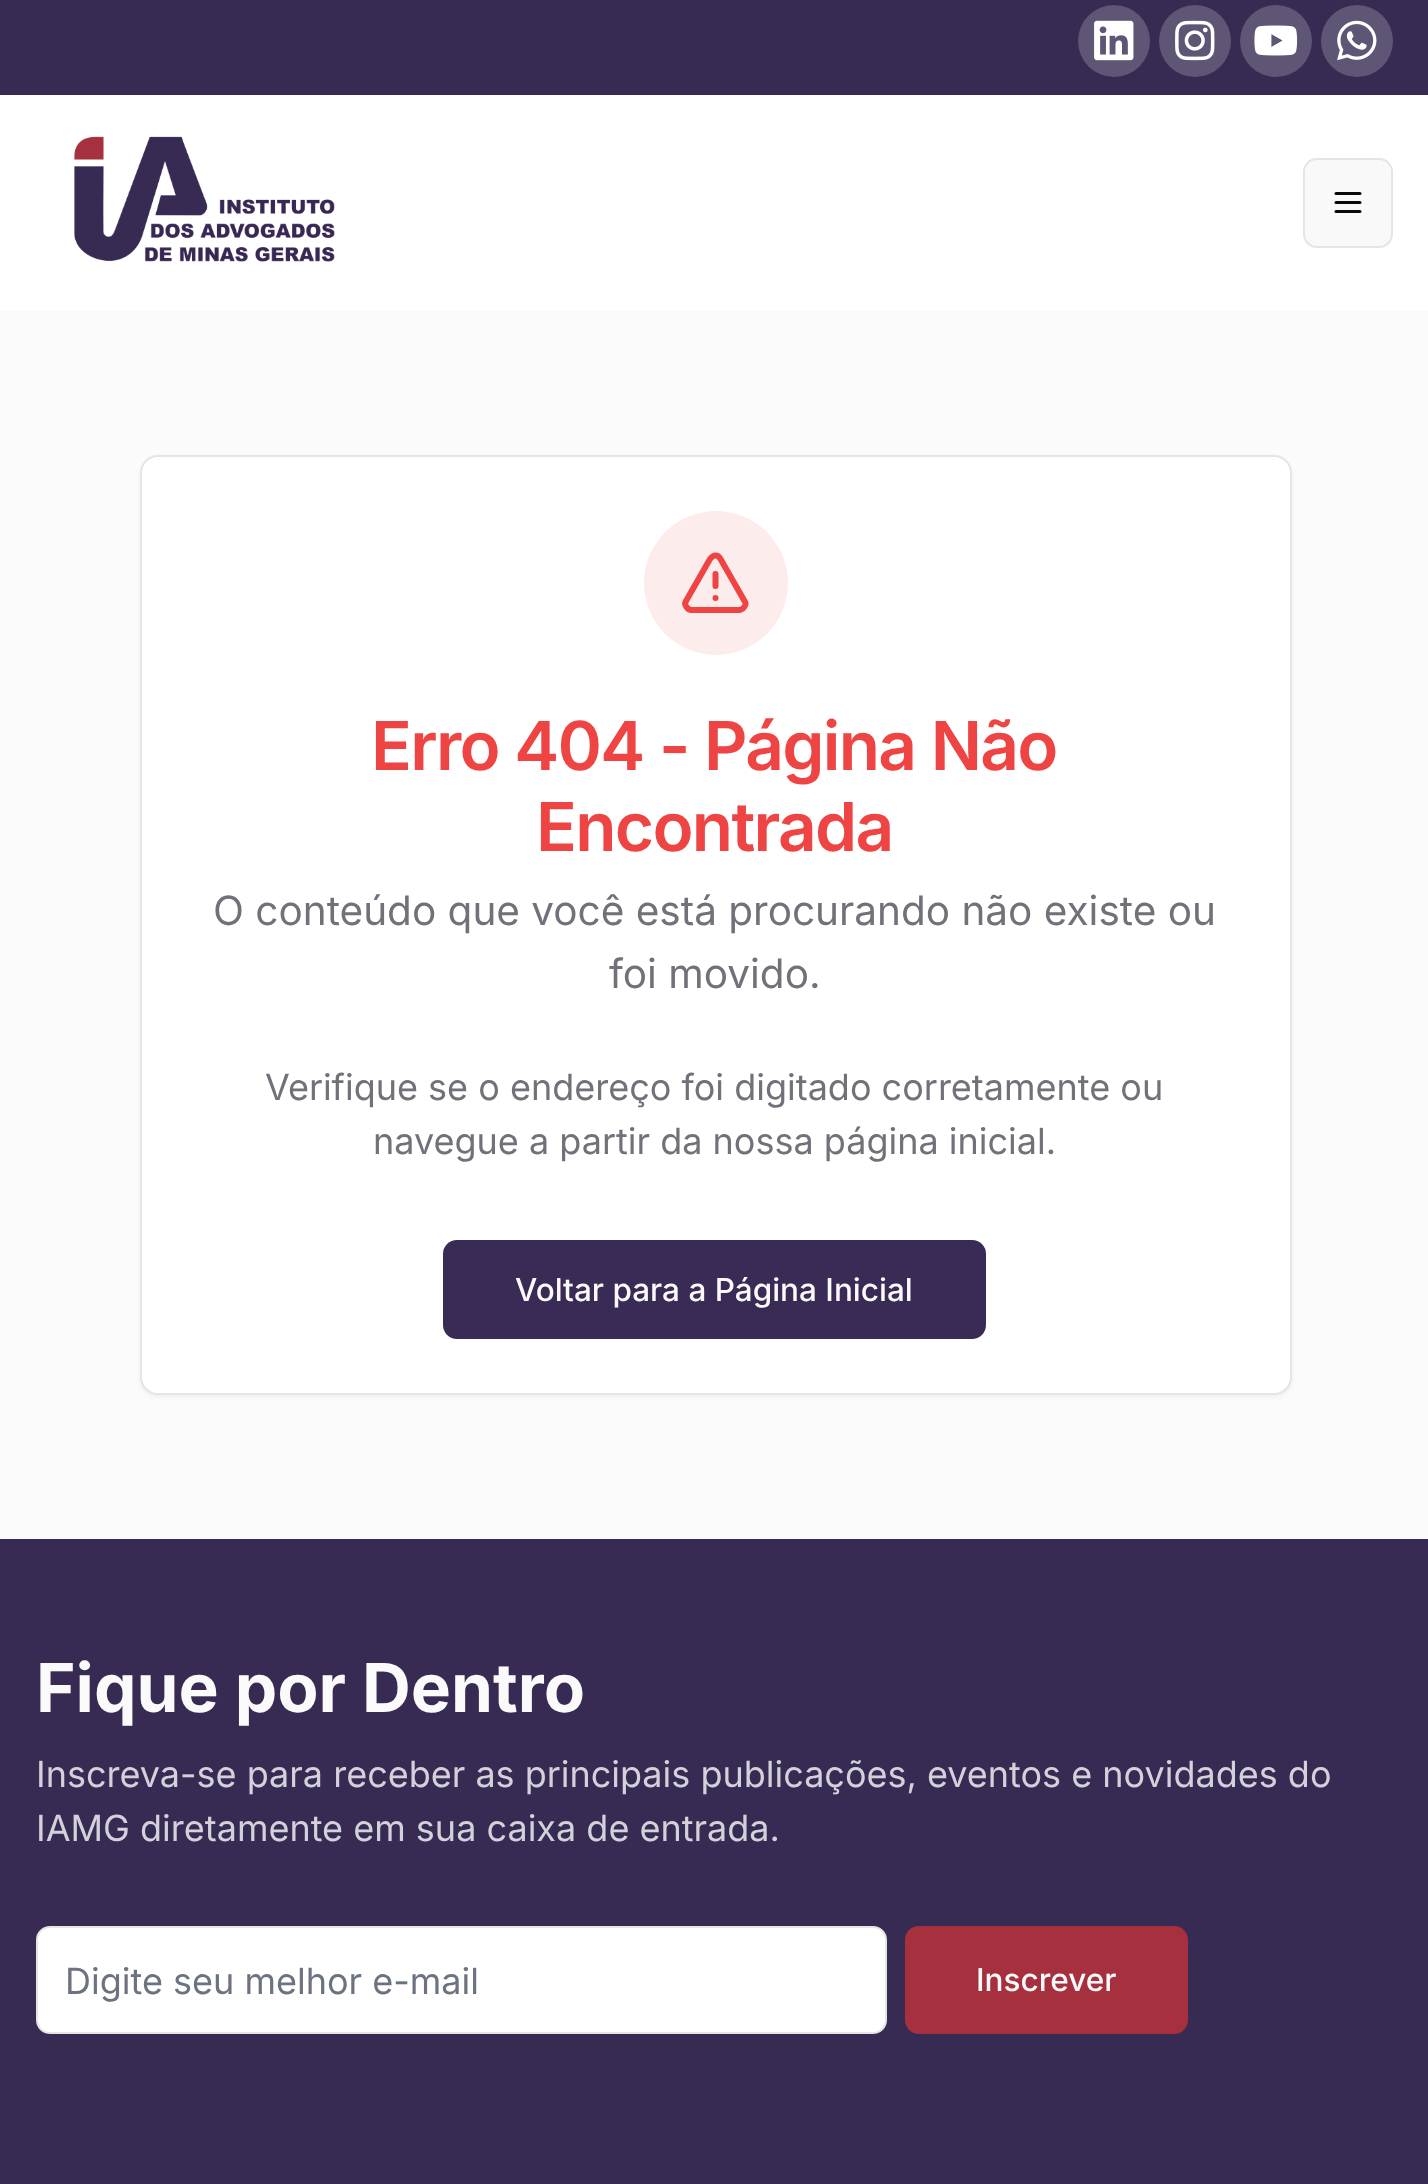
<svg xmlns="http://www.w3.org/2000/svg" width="1428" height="2184">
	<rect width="100%" height="100%" fill="#372B53" />
	<circle cx="1114" cy="41" r="36" fill="#5F5575" />
	<image x="1094" y="20" width="40" height="41" href="assets/img1.png" />
	<circle cx="1195" cy="41" r="36" fill="#5F5575" />
	<image x="1175" y="20" width="40" height="41" href="assets/img2.png" />
	<circle cx="1276" cy="41" r="36" fill="#5F5575" />
	<image x="1254" y="25" width="44" height="31" href="assets/img3.png" />
	<circle cx="1357" cy="41" r="36" fill="#5F5575" />
	<image x="1337" y="20" width="40" height="41" href="assets/img4.png" />
	<rect x="0" y="95" width="1428" height="216" fill="#FFFFFF" />
	<image x="74" y="136" width="261" height="126" href="assets/img5.png" />
	<rect x="1304" y="159" width="88" height="88" rx="13" fill="#F9F9FA" stroke="#E5E5E5" stroke-width="2" />
	<path d="M1336 202.5H1360M1336 193.5H1360M1336 211.5H1360" fill="none" stroke="#09090B" stroke-width="3" stroke-linecap="round" stroke-linejoin="round" />
	<rect x="0" y="311" width="1428" height="1228" fill="#FBFBFB" />
	<rect x="140" y="457" width="1152" height="940" rx="18" fill="#000000" fill-opacity="0.05" filter="blur(2px)" />
	<rect x="141" y="456" width="1150" height="938" rx="17" fill="#FFFFFF" stroke="#E5E5E5" stroke-width="2" />
	<circle cx="716" cy="583" r="72" fill="#FDECEC" />
	<path d="M744.5 601L720.5 559C719.5 557 717.5 555.5 715.5 555.5C713.5 555.5 711.5 557 710 559L686 601C685 602.5 685 605 686.5 607C687.5 608.5 689.5 610 691.5 610H739.5C741.5 609.5 743.5 608.5 744.5 606.5C746 605 746 602.5 744.5 601" fill="none" stroke="#EF4444" stroke-width="6" stroke-linecap="round" stroke-linejoin="round" />
	<path d="M715.5 574V586M715.5 598H715.5" fill="none" stroke="#EF4444" stroke-width="6" stroke-linecap="round" stroke-linejoin="round" />
	<g font-family="Inter" font-size="67.5" font-weight="600" letter-spacing="-1.7" fill="#EF4444">
		<text x="371" y="770">Erro 404 - Página Não</text>
		<text x="536" y="851">Encontrada</text>
	</g>
	<g font-family="Inter" font-size="40.5" fill="#71717A">
		<text x="213" y="925">O conteúdo que você está procurando não existe ou</text>
		<text x="609" y="988">foi movido.</text>
	</g>
	<g font-family="Inter" font-size="36" fill="#71717A">
		<text x="265" y="1100">Verifique se o endereço foi digitado corretamente ou</text>
		<text x="373" y="1154">navegue a partir da nossa página inicial.</text>
	</g>
	<rect x="443" y="1240" width="543" height="99" rx="14" fill="#392B55" />
	<text x="515" y="1301" font-family="Inter" font-size="31.5" font-weight="500" fill="#FAFAFA">Voltar para a Página Inicial</text>
	<text x="36" y="1712" font-family="Inter" font-size="67.5" font-weight="700" fill="#FAFAFA">Fique por Dentro</text>
	<g font-family="Inter" font-size="36" fill="#D3D1D9">
		<text x="36" y="1787">Inscreva-se para receber as principais publicações, eventos e novidades do</text>
		<text x="36" y="1841">IAMG diretamente em sua caixa de entrada.</text>
	</g>
	<rect x="37" y="1927" width="849" height="106" rx="13" fill="#FFFFFF" stroke="#E5E5E5" stroke-width="2" />
	<text x="65" y="1994" font-family="Inter" font-size="36" fill="#6B7280">Digite seu melhor e-mail</text>
	<rect x="905" y="1926" width="283" height="108" rx="14" fill="#A6303E" />
	<text x="976" y="1991" font-family="Inter" font-size="31.5" font-weight="500" fill="#FAFAFA">Inscrever</text>
</svg>
